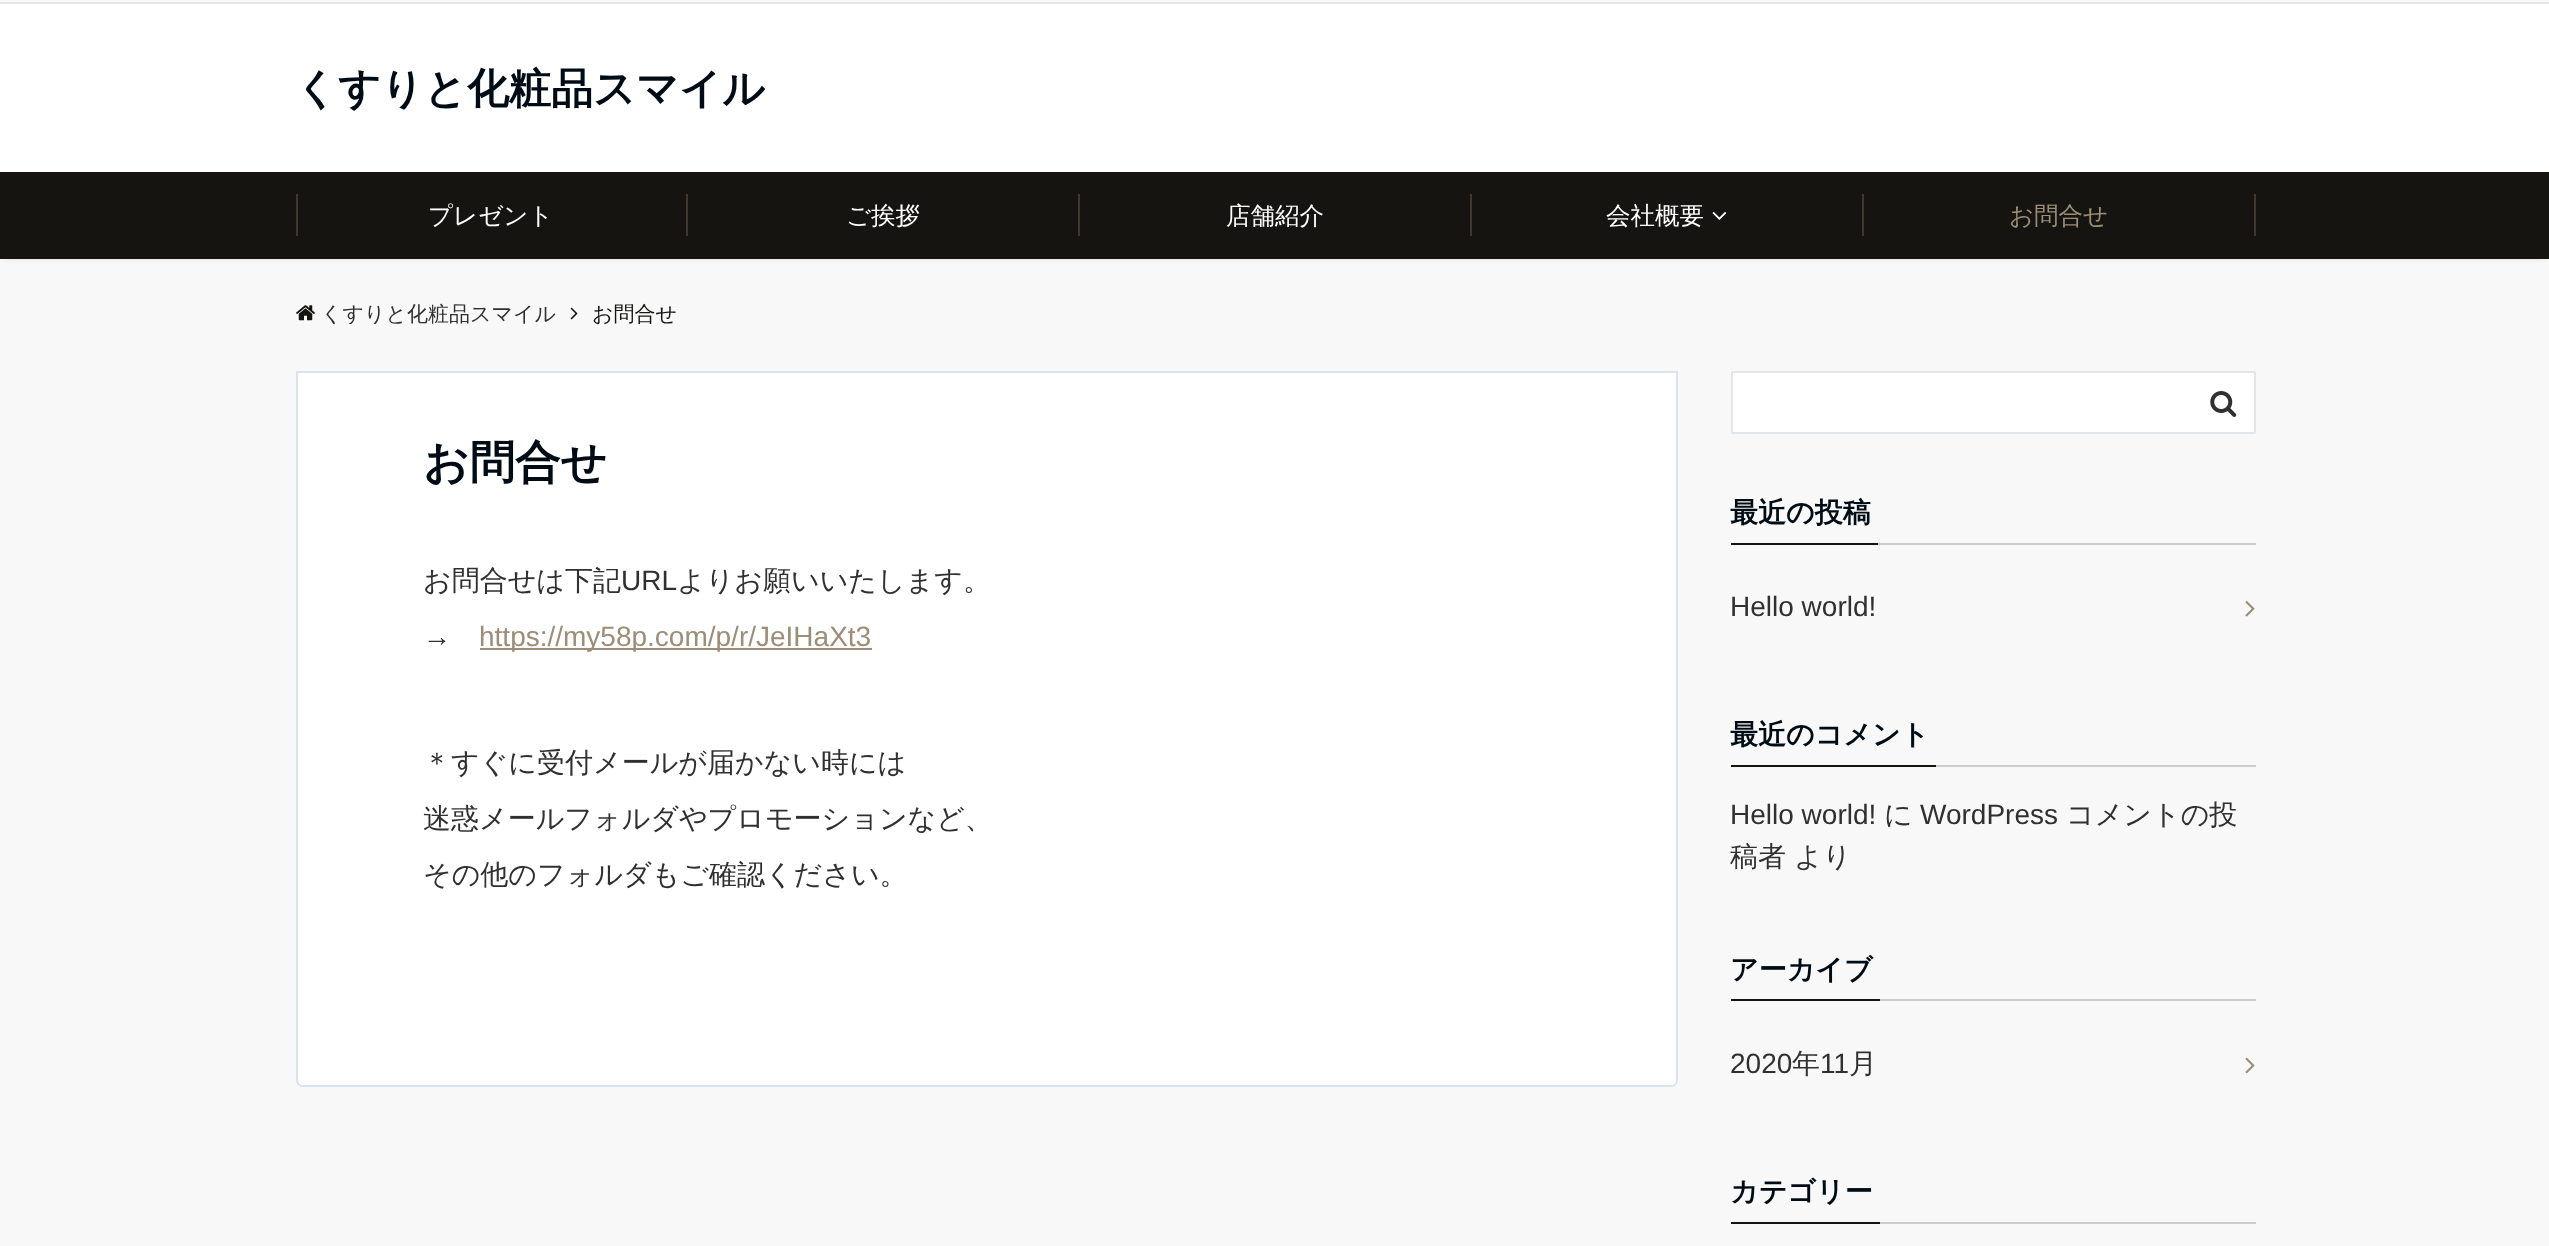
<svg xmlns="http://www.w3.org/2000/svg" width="2549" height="1246">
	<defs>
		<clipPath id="clip1"><rect x="296" y="303" width="296" height="21" /></clipPath>
	</defs>
	<rect width="100%" height="100%" fill="#F8F8F8" />
	<rect x="0" y="2" width="2549" height="2" fill="#E2E5E8" />
	<rect x="0" y="4" width="2549" height="168" fill="#FFFFFF" />
	<text x="295" y="103" font-family="WenQuanYi Zen Hei" font-size="42" font-weight="700" fill="#000C15">くすりと化粧品スマイル</text>
	<rect x="5" y="180" width="2540" height="77" fill="#000000" fill-opacity="0.2" filter="blur(3.5px)" />
	<rect x="0" y="172" width="2549" height="87" fill="#161410" />
	<rect x="296" y="194" width="2" height="42" fill="#3E382F" />
	<text x="428" y="224" font-family="WenQuanYi Zen Hei" font-size="24.5" font-weight="500" fill="#FFFFFF">プレゼント</text>
	<rect x="686" y="194" width="2" height="42" fill="#3E382F" />
	<text x="846" y="224" font-family="WenQuanYi Zen Hei" font-size="24.5" font-weight="500" fill="#FFFFFF">ご挨拶</text>
	<rect x="1078" y="194" width="2" height="42" fill="#3E382F" />
	<text x="1226" y="224" font-family="WenQuanYi Zen Hei" font-size="24.5" font-weight="500" fill="#FFFFFF">店舗紹介</text>
	<rect x="1470" y="194" width="2" height="42" fill="#3E382F" />
	<text x="1606" y="224" font-family="WenQuanYi Zen Hei" font-size="24.5" font-weight="500" fill="#FFFFFF">会社概要</text>
	<image x="1712" y="212" width="15" height="8" href="assets/img1.png" />
	<rect x="1862" y="194" width="2" height="42" fill="#3E382F" />
	<text x="2009" y="224" font-family="WenQuanYi Zen Hei" font-size="24.5" font-weight="500" fill="#9B8D77">お問合せ</text>
	<rect x="2254" y="194" width="2" height="42" fill="#3E382F" />
	<image x="296" y="305" width="19" height="16" href="assets/img2.png" />
	<g clip-path="url(#clip1)">
		<text x="321" y="321" font-family="WenQuanYi Zen Hei" font-size="21" font-weight="500" fill="#303030">くすりと化粧品スマイル</text>
	</g>
	<image x="570" y="307" width="8" height="13" href="assets/img3.png" />
	<text x="592" y="321" font-family="WenQuanYi Zen Hei" font-size="21" font-weight="500" fill="#161410">お問合せ</text>
	<path d="M297 372H1677V1080C1677 1083.5 1674.5 1086 1671 1086H303C299.5 1086 297 1083.5 297 1080Z" fill="#FFFFFF" stroke="#D9E2F0" stroke-width="2" />
	<text x="423" y="478" font-family="WenQuanYi Zen Hei" font-size="45.5" font-weight="700" fill="#000C15">お問合せ</text>
	<text x="423" y="590" font-family="WenQuanYi Zen Hei" font-size="28" font-weight="500" fill="#303030">お問合せは下記</text>
	<text x="621" y="590" font-family="Liberation Sans" font-size="28" fill="#303030">URL</text>
	<text x="677" y="590" font-family="WenQuanYi Zen Hei" font-size="28" font-weight="500" fill="#303030">よりお願いいたします。</text>
	<text x="423" y="646" font-family="Liberation Sans" font-size="28" fill="#303030">→</text>
	<rect x="480" y="648" width="392" height="2" fill="#9B8D77" />
	<text x="479" y="646" font-family="Liberation Sans" font-size="28" fill="#9B8D77">https://my58p.com/p/r/JeIHaXt3</text>
	<g font-family="WenQuanYi Zen Hei" font-size="28" font-weight="500" fill="#303030">
		<text x="423" y="772">＊すぐに受付メールが届かない時には</text>
		<text x="423" y="828">迷惑メールフォルダやプロモーションなど、</text>
		<text x="423" y="884">その他のフォルダもご確認ください。</text>
	</g>
	<rect x="1732" y="372" width="523" height="61" rx="1" fill="#FFFFFF" stroke="#E2E5E8" stroke-width="2" />
	<image x="2210" y="391" width="27" height="26" href="assets/img4.png" />
	<rect x="1878" y="543" width="378" height="2" fill="#CCCCCC" />
	<rect x="1731" y="543" width="147" height="2" fill="#161410" />
	<text x="1730" y="522" font-family="WenQuanYi Zen Hei" font-size="28" font-weight="700" fill="#000C15">最近の投稿</text>
	<text x="1730" y="616" font-family="Liberation Sans" font-size="28" fill="#303030">Hello world!</text>
	<image x="2245" y="601" width="10" height="16" href="assets/img5.png" />
	<rect x="1936" y="765" width="320" height="2" fill="#CCCCCC" />
	<rect x="1731" y="765" width="205" height="2" fill="#161410" />
	<text x="1730" y="744" font-family="WenQuanYi Zen Hei" font-size="28" font-weight="700" fill="#000C15">最近のコメント</text>
	<text x="1730" y="824" font-family="Liberation Sans" font-size="28" fill="#303030">Hello world!</text>
	<text x="1884" y="824" font-family="WenQuanYi Zen Hei" font-size="28" font-weight="500" fill="#303030">に</text>
	<text x="1920" y="824" font-family="Liberation Sans" font-size="28" fill="#303030">WordPress</text>
	<g font-family="WenQuanYi Zen Hei" font-size="28" font-weight="500" fill="#303030">
		<text x="2066" y="824">コメントの投</text>
		<text x="1730" y="866">稿者</text>
		<text x="1794" y="866">より</text>
	</g>
	<rect x="1880" y="999" width="376" height="2" fill="#CCCCCC" />
	<rect x="1731" y="999" width="149" height="2" fill="#161410" />
	<text x="1730" y="979" font-family="WenQuanYi Zen Hei" font-size="28" font-weight="700" fill="#000C15">アーカイブ</text>
	<text x="1730" y="1073" font-family="Liberation Sans" font-size="28" fill="#303030">2020</text>
	<text x="1792" y="1073" font-family="WenQuanYi Zen Hei" font-size="28" font-weight="500" fill="#303030">年</text>
	<text x="1820" y="1073" font-family="Liberation Sans" font-size="28" fill="#303030">11</text>
	<text x="1849" y="1073" font-family="WenQuanYi Zen Hei" font-size="28" font-weight="500" fill="#303030">月</text>
	<image x="2245" y="1057" width="10" height="17" href="assets/img6.png" />
	<rect x="1880" y="1222" width="376" height="2" fill="#CCCCCC" />
	<rect x="1731" y="1222" width="149" height="2" fill="#161410" />
	<text x="1730" y="1201" font-family="WenQuanYi Zen Hei" font-size="28" font-weight="700" fill="#000C15">カテゴリー</text>
</svg>
